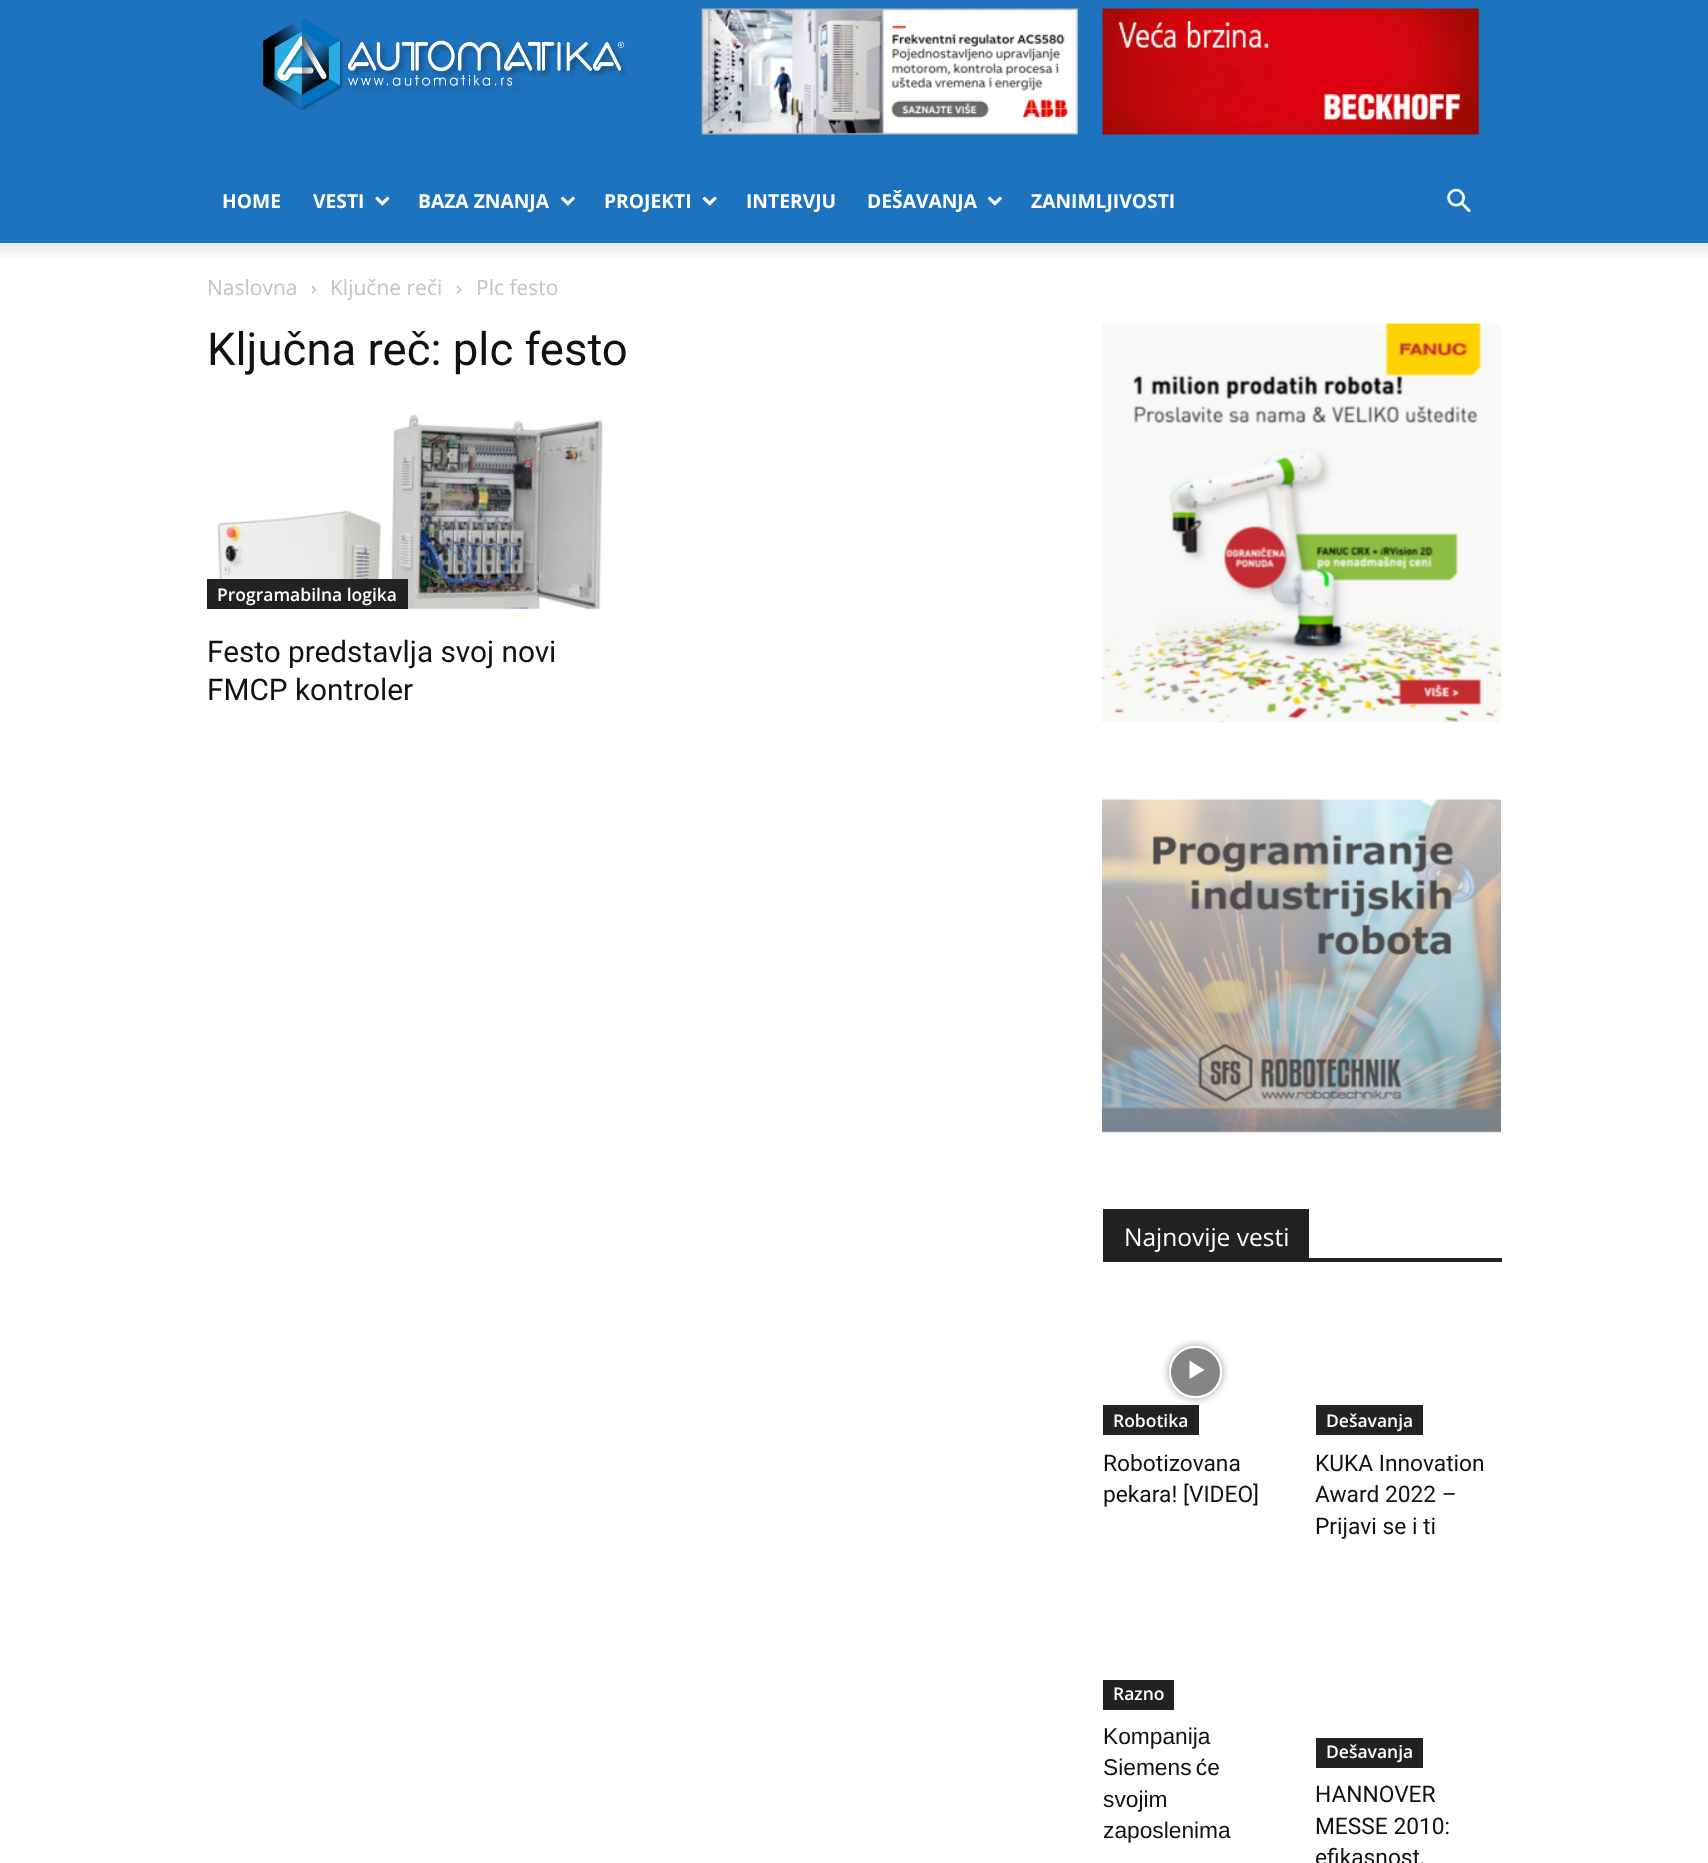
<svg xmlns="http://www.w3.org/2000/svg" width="1708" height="1863">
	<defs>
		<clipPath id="clip1"><path d="M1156 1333H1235V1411H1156ZM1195 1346H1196C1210.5 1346 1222 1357.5 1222 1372C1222 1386.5 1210.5 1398 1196 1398H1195C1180.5 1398 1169 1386.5 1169 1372C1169 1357.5 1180.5 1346 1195 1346Z" clip-rule="evenodd" /></clipPath>
	</defs>
	<rect width="100%" height="100%" fill="#FFFFFF" />
	<rect x="0" y="0" width="1708" height="243" fill="#1E73BE" />
	<image x="263" y="18" width="364" height="93" href="assets/img1.png" />
	<image x="701" y="8" width="377" height="127" href="assets/img2.png" />
	<image x="1102" y="8" width="377" height="127" href="assets/img3.png" />
	<g font-family="Open Sans" font-size="19.25" font-weight="700" fill="#FFFFFF">
		<text x="222" y="208">HOME</text>
		<text x="313" y="208">VESTI</text>
	</g>
	<image x="375" y="196" width="15" height="10" href="assets/img4.png" />
	<text x="418" y="208" font-family="Open Sans" font-size="19.25" font-weight="700" fill="#FFFFFF">BAZA ZNANJA</text>
	<image x="560" y="196" width="15" height="10" href="assets/img5.png" />
	<text x="604" y="208" font-family="Open Sans" font-size="19.25" font-weight="700" fill="#FFFFFF">PROJEKTI</text>
	<image x="702" y="196" width="15" height="10" href="assets/img6.png" />
	<g font-family="Open Sans" font-size="19.25" font-weight="700" fill="#FFFFFF">
		<text x="746" y="208">INTERVJU</text>
		<text x="867" y="208">DEŠAVANJA</text>
	</g>
	<image x="987" y="196" width="15" height="10" href="assets/img5.png" />
	<text x="1031" y="208" font-family="Open Sans" font-size="19.25" font-weight="700" fill="#FFFFFF">ZANIMLJIVOSTI</text>
	<image x="1447" y="188" width="24" height="25" href="assets/img7.png" />
	<image x="0" y="243" width="1708" height="15" href="assets/img8.png" />
	<text x="207" y="295" font-family="Open Sans" font-size="21" fill="#C3C3C3">Naslovna</text>
	<image x="311" y="285" width="6" height="9" href="assets/img9.png" />
	<text x="330" y="295" font-family="Open Sans" font-size="21" fill="#C3C3C3">Ključne reči</text>
	<image x="456" y="285" width="6" height="9" href="assets/img10.png" />
	<text x="476" y="295" font-family="Open Sans" font-size="21" fill="#C3C3C3">Plc festo</text>
	<text x="207" y="365" font-family="Roboto" font-size="45.5" fill="#111111">Ključna reč: plc festo</text>
	<image x="217" y="413" width="386" height="196" href="assets/img11.png" />
	<rect x="207" y="579" width="201" height="30" fill="#222222" />
	<text x="217" y="601" font-family="Open Sans" font-size="17.5" font-weight="600" fill="#FFFFFF">Programabilna logika</text>
	<g font-family="Roboto" font-size="29.75" fill="#111111">
		<text x="207" y="662">Festo predstavlja svoj novi</text>
		<text x="207" y="700">FMCP kontroler</text>
	</g>
	<image x="1102" y="322" width="399" height="401" href="assets/img12.png" />
	<image x="1102" y="798" width="399" height="335" href="assets/img13.png" />
	<rect x="1103" y="1258" width="399" height="4" fill="#222222" />
	<rect x="1103" y="1209" width="206" height="49" fill="#222222" />
	<text x="1124" y="1246" font-family="Open Sans" font-size="24.5" fill="#FFFFFF">Najnovije vesti</text>
	<rect x="1103" y="1405" width="96" height="30" fill="#222222" />
	<g clip-path="url(#clip1)">
		<rect x="1169" y="1346" width="53" height="52" rx="26" fill="#000000" fill-opacity="0.4" filter="blur(4px)" />
	</g>
	<rect x="1170" y="1347" width="51" height="50" rx="25" fill="#000000" fill-opacity="0.48" stroke="#FFFFFF" stroke-width="2" />
	<path d="M1189.5 1360.5V1379L1204.5 1370Z" fill="#FFFFFF" />
	<text x="1113" y="1427" font-family="Open Sans" font-size="17.5" font-weight="600" fill="#FFFFFF">Robotika</text>
	<g font-family="Roboto" font-size="22.75" fill="#111111">
		<text x="1103" y="1471">Robotizovana</text>
		<text x="1103" y="1502">pekara! [VIDEO]</text>
	</g>
	<rect x="1316" y="1405" width="107" height="30" fill="#222222" />
	<text x="1326" y="1427" font-family="Open Sans" font-size="17.5" font-weight="600" fill="#FFFFFF">Dešavanja</text>
	<g font-family="Roboto" font-size="22.75" fill="#111111">
		<text x="1315" y="1471">KUKA Innovation</text>
		<text x="1315" y="1502">Award 2022 –</text>
		<text x="1315" y="1534">Prijavi se i ti</text>
	</g>
	<rect x="1103" y="1680" width="71" height="30" fill="#222222" />
	<text x="1113" y="1700" font-family="Open Sans" font-size="17.5" font-weight="600" fill="#FFFFFF">Razno</text>
	<g font-family="Liberation Sans" font-size="22.75" fill="#111111">
		<text x="1103" y="1744">Kompanija</text>
		<text x="1103" y="1775" word-spacing="-2">Siemens će</text>
		<text x="1103" y="1807">svojim</text>
		<text x="1103" y="1838">zaposlenima</text>
	</g>
	<rect x="1316" y="1738" width="107" height="30" fill="#222222" />
	<text x="1326" y="1758" font-family="Open Sans" font-size="17.5" font-weight="600" fill="#FFFFFF">Dešavanja</text>
	<g font-family="Roboto" font-size="22.75" fill="#111111">
		<text x="1315" y="1802">HANNOVER</text>
		<text x="1315" y="1834">MESSE 2010:</text>
		<text x="1315" y="1865">efikasnost,</text>
	</g>
</svg>
